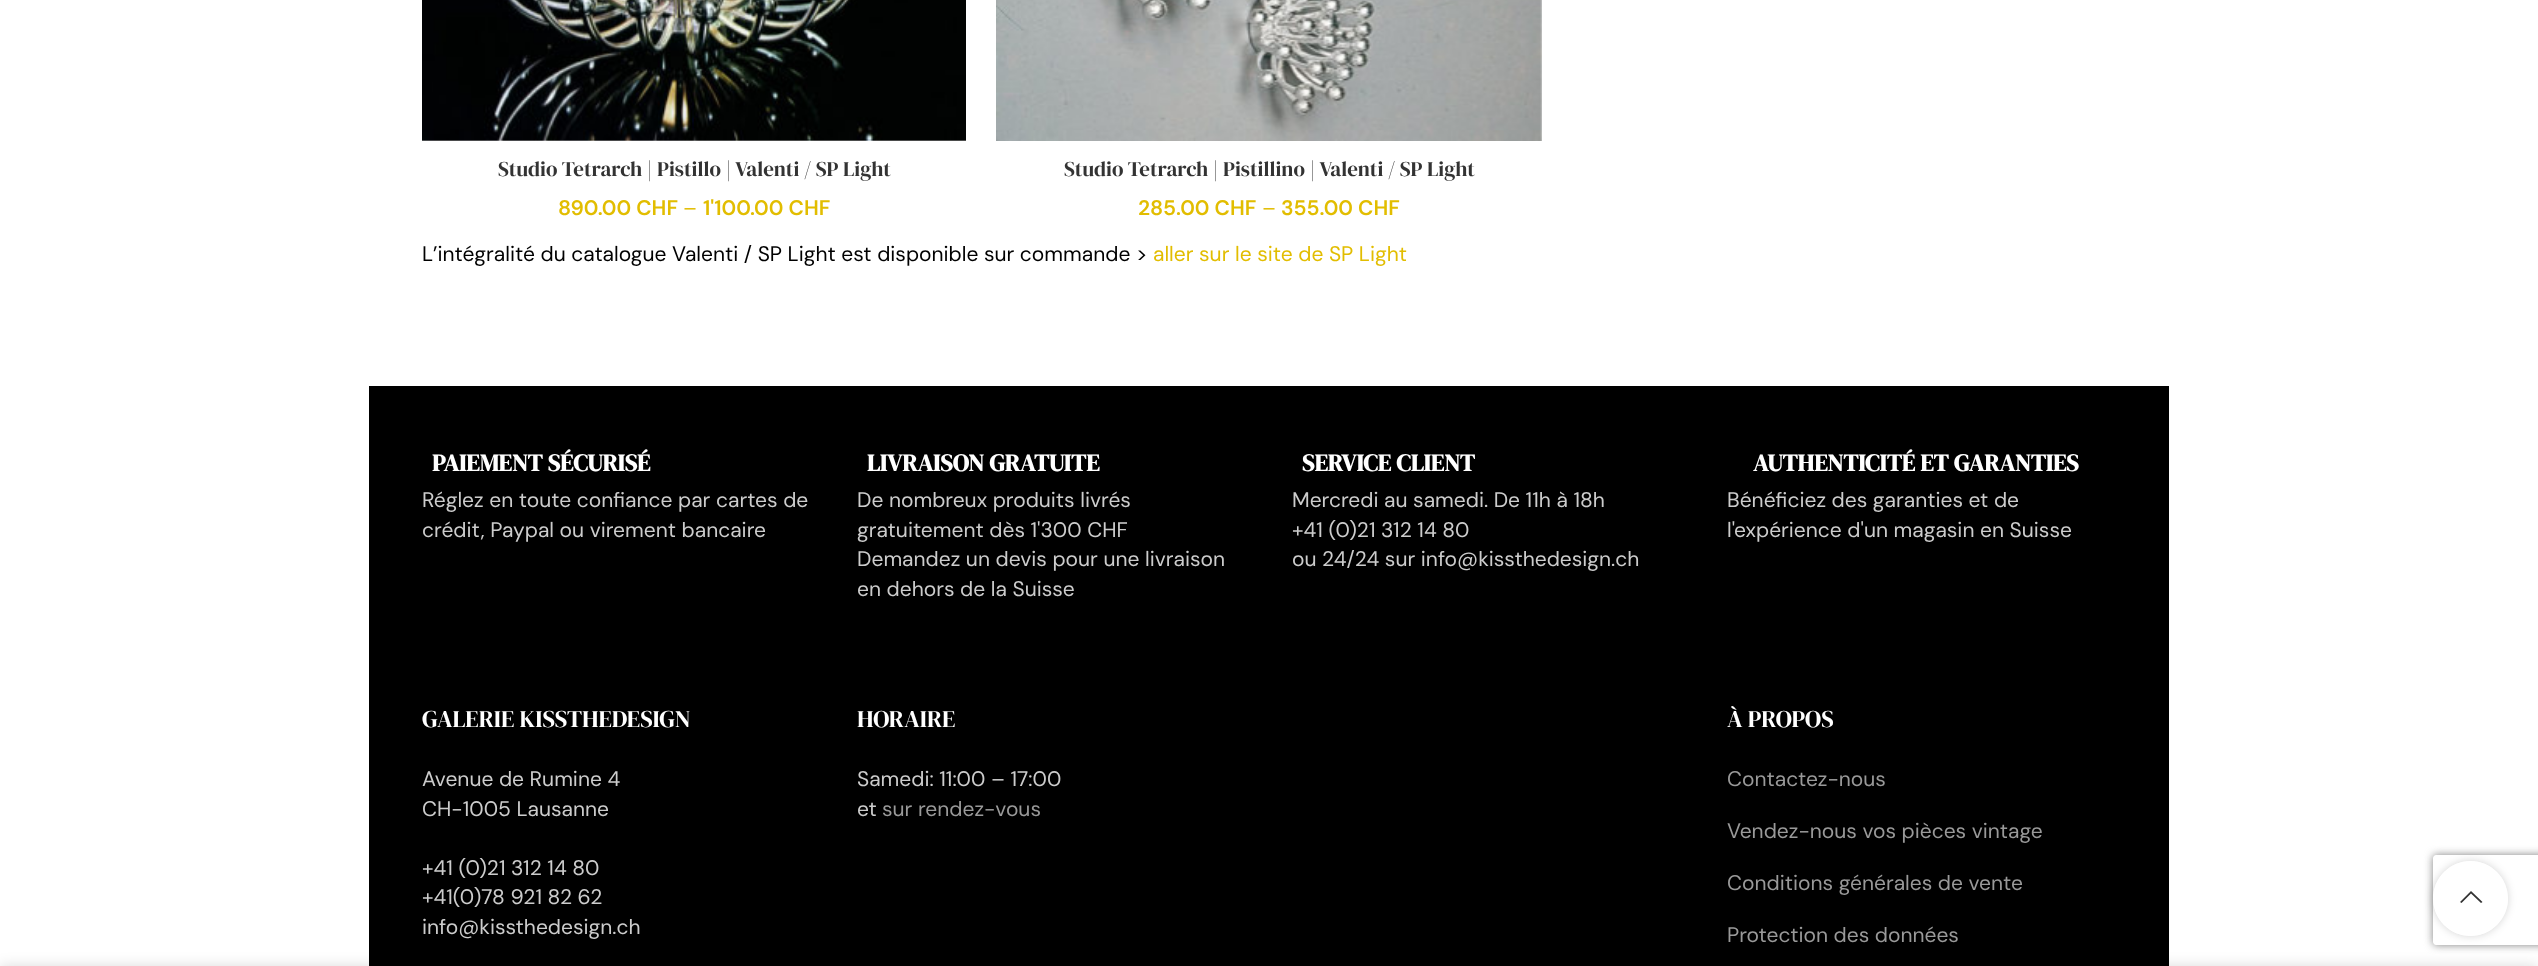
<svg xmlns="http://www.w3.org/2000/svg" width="2538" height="966">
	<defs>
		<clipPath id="clip1"><path d="M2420 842H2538V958H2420ZM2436 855H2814C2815.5 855 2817 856.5 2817 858V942C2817 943.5 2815.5 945 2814 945H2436C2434.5 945 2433 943.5 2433 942V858C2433 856.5 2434.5 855 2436 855Z" clip-rule="evenodd" /></clipPath>
		<clipPath id="clip2"><path d="M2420 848H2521V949H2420ZM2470.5 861C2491 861 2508 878 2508 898.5C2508 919 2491 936 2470.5 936C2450 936 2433 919 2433 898.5C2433 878 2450 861 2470.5 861Z" clip-rule="evenodd" /></clipPath>
	</defs>
	<rect width="100%" height="100%" fill="#FFFFFF" />
	<image x="422" y="0" width="544" height="141" href="assets/img1.png" />
	<text x="498" y="176" font-family="DM Serif Display" font-size="21" fill="#333333">Studio Tetrarch | Pistillo | Valenti / SP Light</text>
	<text x="558" y="215" font-family="DM Sans" font-size="21" font-weight="600" fill="#E2BD00">890.00 CHF</text>
	<text x="683" y="215" font-family="DM Sans" font-size="21" fill="#E2BD00">–</text>
	<text x="703" y="215" font-family="DM Sans" font-size="21" font-weight="600" fill="#E2BD00">1'100.00 CHF</text>
	<image x="996" y="0" width="546" height="141" href="assets/img2.png" />
	<text x="1064" y="176" font-family="DM Serif Display" font-size="21" fill="#333333">Studio Tetrarch | Pistillino | Valenti / SP Light</text>
	<text x="1138" y="215" font-family="DM Sans" font-size="21" font-weight="600" fill="#E2BD00">285.00 CHF</text>
	<text x="1262" y="215" font-family="DM Sans" font-size="21" fill="#E2BD00">–</text>
	<text x="1281" y="215" font-family="DM Sans" font-size="21" font-weight="600" fill="#E2BD00">355.00 CHF</text>
	<text x="422" y="261" font-family="DM Sans" font-size="21" fill="#000000">L’intégralité du catalogue Valenti / SP Light est disponible sur commande &gt;</text>
	<text x="1153" y="261" font-family="DM Sans" font-size="21" fill="#E2BD00">aller sur le site de SP Light</text>
	<rect x="369" y="386" width="1800" height="580" fill="#000000" />
	<text x="432" y="471" font-family="DM Serif Display" font-size="24" font-weight="700" fill="#FFFFFF">PAIEMENT SÉCURISÉ</text>
	<g font-family="DM Sans" font-size="21" fill="#CCCCCC">
		<text x="422" y="507">Réglez en toute confiance par cartes de</text>
		<text x="422" y="537">crédit, Paypal ou virement bancaire</text>
	</g>
	<text x="867" y="471" font-family="DM Serif Display" font-size="24" font-weight="700" fill="#FFFFFF">LIVRAISON GRATUITE</text>
	<g font-family="DM Sans" font-size="21" fill="#CCCCCC">
		<text x="857" y="507">De nombreux produits livrés</text>
		<text x="857" y="537">gratuitement dès 1'300 CHF</text>
		<text x="857" y="566">Demandez un devis pour une livraison</text>
		<text x="857" y="596">en dehors de la Suisse</text>
	</g>
	<text x="1302" y="471" font-family="DM Serif Display" font-size="24" font-weight="700" fill="#FFFFFF">SERVICE CLIENT</text>
	<g font-family="DM Sans" font-size="21" fill="#CCCCCC">
		<text x="1292" y="507">Mercredi au samedi. De 11h à 18h</text>
		<text x="1292" y="537">+41 (0)21 312 14 80</text>
		<text x="1292" y="566">ou 24/24 sur info@kissthedesign.ch</text>
	</g>
	<text x="1753" y="471" font-family="DM Serif Display" font-size="24" font-weight="700" fill="#FFFFFF">AUTHENTICITÉ ET GARANTIES</text>
	<g font-family="DM Sans" font-size="21" fill="#CCCCCC">
		<text x="1727" y="507">Bénéficiez des garanties et de</text>
		<text x="1727" y="537">l'expérience d'un magasin en Suisse</text>
	</g>
	<text x="422" y="727" font-family="DM Serif Display" font-size="24" fill="#FFFFFF">GALERIE KISSTHEDESIGN</text>
	<g font-family="DM Sans" font-size="21" fill="#CCCCCC">
		<text x="422" y="786">Avenue de Rumine 4</text>
		<text x="422" y="816">CH-1005 Lausanne</text>
		<text x="422" y="875">+41 (0)21 312 14 80</text>
		<text x="422" y="904">+41(0)78 921 82 62</text>
		<text x="422" y="934">info@kissthedesign.ch</text>
	</g>
	<text x="857" y="727" font-family="DM Serif Display" font-size="24" fill="#FFFFFF">HORAIRE</text>
	<g font-family="DM Sans" font-size="21" fill="#CCCCCC">
		<text x="857" y="786">Samedi: 11:00 – 17:00</text>
		<text x="857" y="816">et</text>
	</g>
	<text x="882" y="816" font-family="DM Sans" font-size="21" fill="#999999">sur rendez-vous</text>
	<text x="1727" y="727" font-family="DM Serif Display" font-size="24" fill="#FFFFFF">À PROPOS</text>
	<g font-family="DM Sans" font-size="21" fill="#999999">
		<text x="1727" y="786">Contactez-nous</text>
		<text x="1727" y="838">Vendez-nous vos pièces vintage</text>
		<text x="1727" y="890">Conditions générales de vente</text>
		<text x="1727" y="942">Protection des données</text>
	</g>
	<g clip-path="url(#clip1)">
		<rect x="2433" y="855" width="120" height="90" rx="3" fill="#808080" filter="blur(4px)" />
	</g>
	<g clip-path="url(#clip2)">
		<rect x="2433" y="861" width="75" height="75" rx="37.5" fill="#000000" fill-opacity="0.17" filter="blur(4px)" />
	</g>
	<circle cx="2470.5" cy="898.5" r="37.5" fill="#FFFFFF" fill-opacity="0.9" />
	<path d="M2481 903L2482.5 902L2471 891L2460 902L2461.5 903L2471 893.5Z" fill="#333333" />
	<rect x="0" y="966" width="2538" height="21" fill="#000000" fill-opacity="0.14" filter="blur(7px)" />
</svg>
